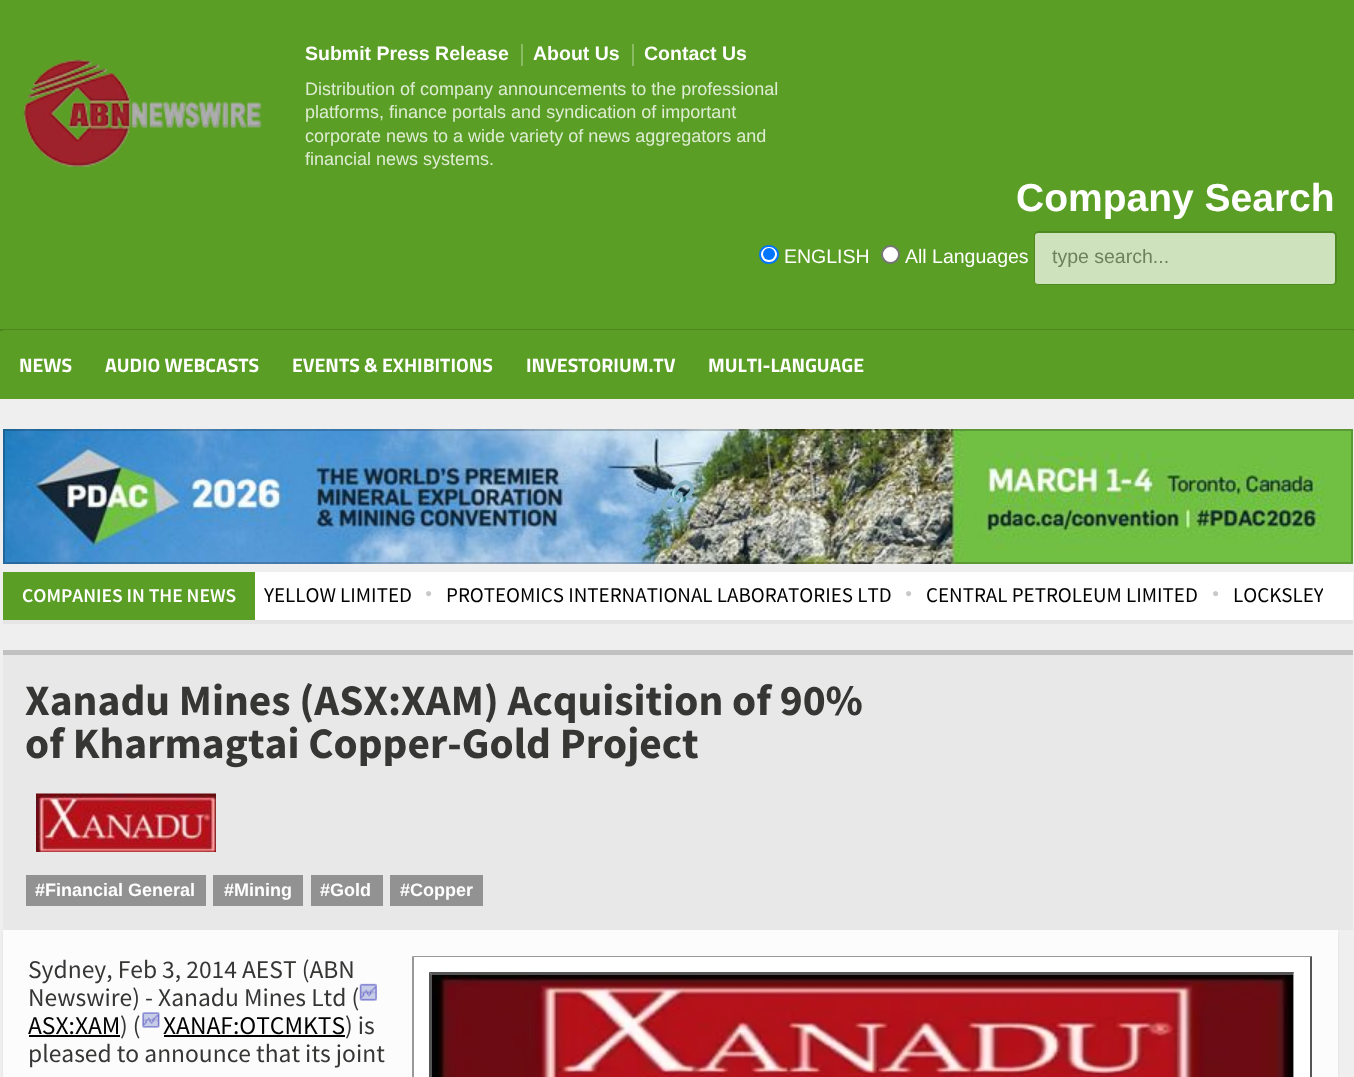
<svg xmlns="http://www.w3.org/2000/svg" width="1354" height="1077">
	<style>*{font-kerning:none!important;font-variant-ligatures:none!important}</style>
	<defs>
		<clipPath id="clip1"><rect x="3" y="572" width="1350" height="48" /></clipPath>
	</defs>
	<rect width="100%" height="100%" fill="#F0EFEF" />
	<rect x="0" y="0" width="1354" height="399" fill="#5A9E25" />
	<image x="23" y="59" width="239" height="108" href="assets/img1.png" />
	<text x="305" y="60" font-family="Liberation Sans" font-size="19.5" font-weight="700" fill="#FFFFFF">Submit Press Release</text>
	<rect x="521" y="44" width="2" height="22" fill="#8CBB66" />
	<text x="533" y="60" font-family="Liberation Sans" font-size="19.5" font-weight="700" fill="#FFFFFF">About Us</text>
	<rect x="632" y="44" width="2" height="22" fill="#8CBB66" />
	<text x="644" y="60" font-family="Liberation Sans" font-size="19.5" font-weight="700" fill="#FFFFFF">Contact Us</text>
	<g font-family="Liberation Sans" font-size="18" fill="#DEECD3">
		<text x="305" y="95">Distribution of company announcements to the professional</text>
		<text x="305" y="118">platforms, finance portals and syndication of important</text>
		<text x="305" y="142">corporate news to a wide variety of news aggregators and</text>
		<text x="305" y="165">financial news systems.</text>
	</g>
	<text x="1016" y="211" font-family="Liberation Sans" font-size="39" font-weight="700" fill="#FFFFFF">Company Search</text>
	<rect x="760" y="246" width="18" height="17" rx="8.5" fill="#FFFFFF" stroke="#0075FF" stroke-width="2" />
	<circle cx="769" cy="254" r="6" fill="#0075FF" />
	<text x="784" y="263" font-family="Liberation Sans" font-size="19.5" fill="#FFFFFF">ENGLISH</text>
	<circle cx="890.5" cy="254.5" r="8.5" fill="#FFFFFF" stroke="#767676" stroke-width="2" />
	<text x="905" y="263" font-family="Liberation Sans" font-size="19.5" fill="#FFFFFF">All Languages</text>
	<rect x="1035" y="232" width="301" height="52" rx="4" fill="none" stroke="#4D8820" stroke-width="2" />
	<rect x="1035" y="233" width="300" height="51" rx="3" fill="#CEE2BE" />
	<text x="1052" y="263" font-family="Liberation Sans" font-size="19.5" fill="#6D815D">type search...</text>
	<rect x="0" y="329" width="1354" height="2" fill="#4D861F" />
	<rect x="3" y="330" width="1350" height="1" fill="#5A9E25" />
	<g font-family="Titillium Web" font-size="19.5" font-weight="700" fill="#FFFFFF">
		<text x="19" y="372">NEWS</text>
		<text x="105" y="372">AUDIO WEBCASTS</text>
		<text x="292" y="372">EVENTS &amp; EXHIBITIONS</text>
		<text x="526" y="372">INVESTORIUM.TV</text>
		<text x="708" y="372">MULTI-LANGUAGE</text>
	</g>
	<image x="3" y="429" width="1350" height="135" href="assets/img2.png" />
	<rect x="4" y="430" width="1348" height="133" fill="none" stroke="#000000" stroke-opacity="0.2" stroke-width="2" />
	<text x="659" y="507" font-family="Noto Color Emoji" font-size="30" fill="#7698AD">🔗</text>
	<rect x="3" y="620" width="1350" height="4" fill="#E6E5E5" />
	<rect x="255" y="572" width="1068" height="48" fill="#FFFFFF" />
	<rect x="3" y="932" width="1335" height="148" fill="#000000" fill-opacity="0.08" filter="blur(1px)" />
	<rect x="3" y="655" width="1350" height="275" fill="#E8E8E8" />
	<rect x="3" y="650" width="1350" height="5" fill="#C1C1C1" />
	<g clip-path="url(#clip1)">
		<rect x="1308" y="572" width="30" height="48" fill="#FFFFFF" filter="blur(15px)" />
	</g>
	<text x="1233" y="602" font-family="Source Sans Pro" font-size="21" fill="#000000">LOCKSLEY</text>
	<rect x="1323" y="572" width="30" height="48" fill="#FFFFFF" />
	<rect x="3" y="572" width="252" height="48" fill="#5A9E25" />
	<text x="22" y="602" font-family="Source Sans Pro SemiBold" font-size="19.5" font-weight="600" fill="#FFFFFF">COMPANIES IN THE NEWS</text>
	<text x="264" y="602" font-family="Source Sans Pro" font-size="21" fill="#000000">YELLOW LIMITED</text>
	<text x="425" y="597" font-family="Liberation Serif" font-size="12" fill="#C9C9C9">●</text>
	<text x="446" y="602" font-family="Source Sans Pro" font-size="21" fill="#000000">PROTEOMICS INTERNATIONAL LABORATORIES LTD</text>
	<text x="905" y="597" font-family="Liberation Serif" font-size="12" fill="#C9C9C9">●</text>
	<text x="926" y="602" font-family="Source Sans Pro" font-size="21" fill="#000000">CENTRAL PETROLEUM LIMITED</text>
	<text x="1212" y="597" font-family="Liberation Serif" font-size="12" fill="#C9C9C9">●</text>
	<g font-family="Source Sans Pro" font-size="43.5" font-weight="700" fill="#363635">
		<text x="25" y="715">Xanadu Mines (ASX:XAM) Acquisition of 90%</text>
		<text x="25" y="758">of Kharmagtai Copper-Gold Project</text>
	</g>
	<image x="36" y="793" width="180" height="59" href="assets/img3.png" />
	<rect x="26" y="875" width="180" height="31" fill="#929292" />
	<text x="35" y="896" font-family="Liberation Sans" font-size="18" font-weight="700" fill="#FFFFFF">#Financial General</text>
	<rect x="213" y="875" width="90" height="31" fill="#929292" />
	<text x="224" y="896" font-family="Liberation Sans" font-size="18" font-weight="700" fill="#FFFFFF">#Mining</text>
	<rect x="311" y="875" width="72" height="31" fill="#929292" />
	<text x="320" y="896" font-family="Liberation Sans" font-size="18" font-weight="700" fill="#FFFFFF">#Gold</text>
	<rect x="390" y="875" width="93" height="31" fill="#929292" />
	<text x="400" y="896" font-family="Liberation Sans" font-size="18" font-weight="700" fill="#FFFFFF">#Copper</text>
	<rect x="3" y="930" width="1335" height="147" fill="#FCFCFC" />
	<g font-family="Source Sans Pro" font-size="25.5" fill="#363635">
		<text x="28" y="978">Sydney, Feb 3, 2014 AEST (ABN</text>
		<text x="28" y="1006">Newswire) - Xanadu Mines Ltd (</text>
	</g>
	<image x="359" y="983" width="18" height="18" href="assets/img4.png" />
	<text x="28" y="1034" font-family="Source Sans Pro" font-size="25.5" fill="#000000">ASX:XAM</text>
	<rect x="29" y="1035" width="91" height="2" fill="#000000" />
	<text x="120" y="1034" font-family="Source Sans Pro" font-size="25.5" fill="#363635">) (</text>
	<image x="142" y="1012" width="18" height="16" href="assets/img5.png" />
	<text x="163" y="1034" font-family="Source Sans Pro" font-size="25.5" fill="#000000">XANAF:OTCMKTS</text>
	<rect x="164" y="1035" width="181" height="2" fill="#000000" />
	<g font-family="Source Sans Pro" font-size="25.5" fill="#363635">
		<text x="345" y="1034">) is</text>
		<text x="28" y="1062">pleased to announce that its joint</text>
	</g>
	<rect x="414" y="957" width="896" height="120" fill="#FFFFFF" />
	<path d="M412 956H1312L1310 957H414Z" fill="#999999" />
	<path d="M1312 956V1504L1310 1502V957Z" fill="#555555" />
	<path d="M412 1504V956L414 957V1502Z" fill="#999999" />
	<path d="M429 972H1294L1293 975H432Z" fill="#555555" />
	<path d="M429 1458V972L432 975V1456Z" fill="#555555" />
	<image x="432" y="975" width="861" height="102" href="assets/img6.png" />
	<path d="M1294 972V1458L1293 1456V975Z" fill="#999999" />
</svg>
